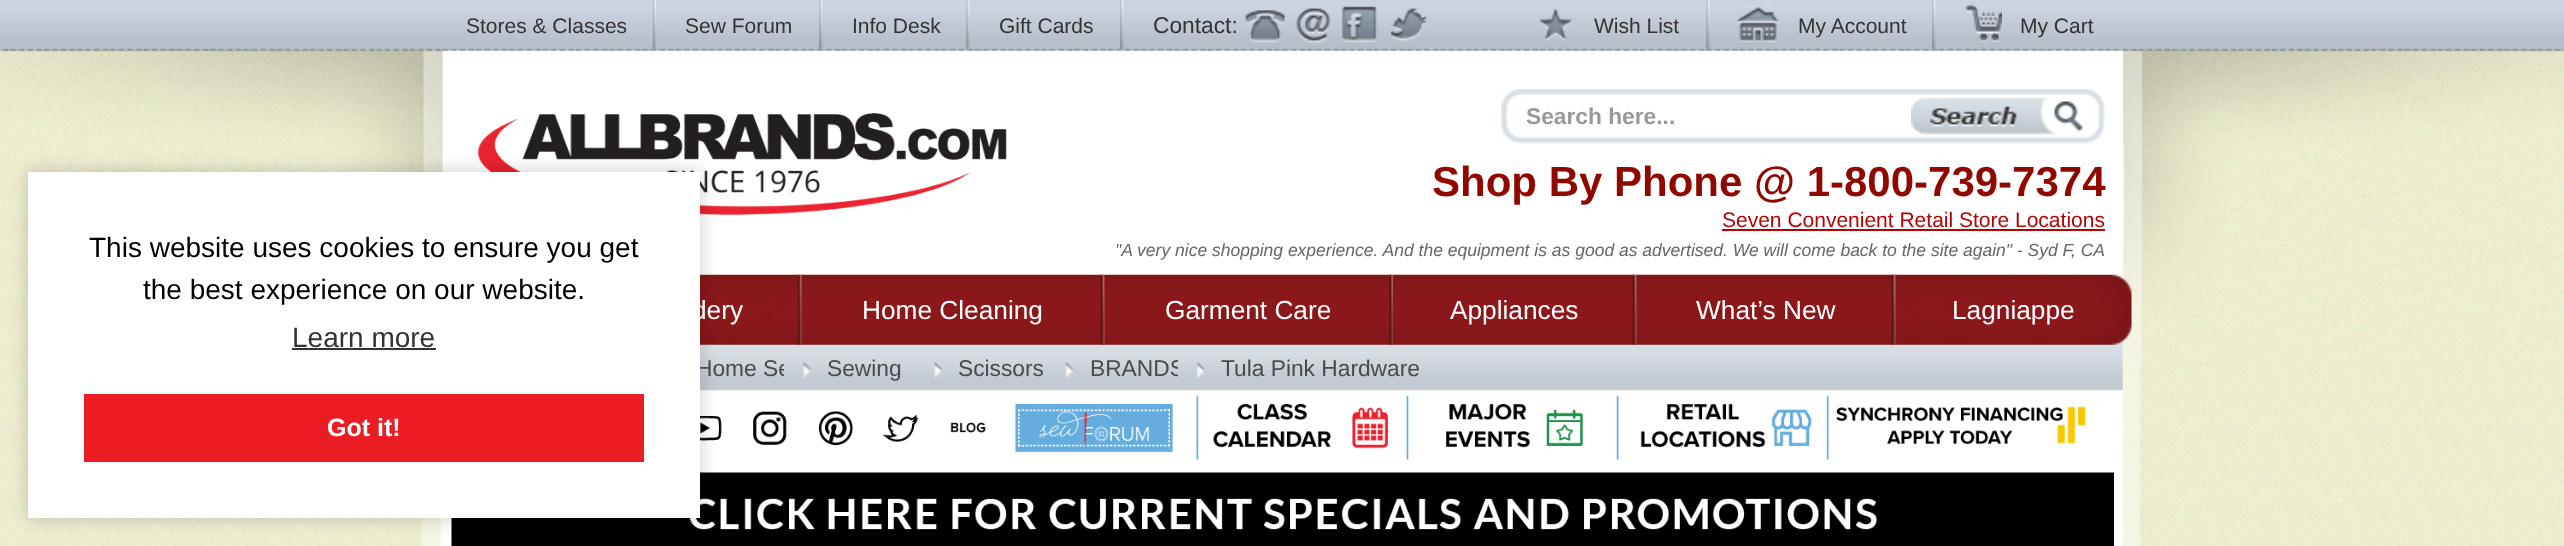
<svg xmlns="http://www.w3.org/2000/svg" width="2564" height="546">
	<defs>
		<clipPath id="clip1"><rect x="697" y="347" width="87" height="43" /></clipPath>
		<clipPath id="clip2"><rect x="1090" y="347" width="88" height="43" /></clipPath>
	</defs>
	<rect width="100%" height="100%" fill="#FFFFFF" />
	<image x="0" y="362" width="2564" height="184" href="assets/img15.png" />
	<image x="421" y="362" width="1723" height="184" href="assets/img16.png" />
	<image x="0" y="50" width="2564" height="313" href="assets/img17.png" />
	<rect x="443" y="50" width="1680" height="496" fill="#FFFFFF" />
	<image x="0" y="0" width="2564" height="51" href="assets/img1.png" />
	<image x="652" y="0" width="5" height="49" href="assets/img2.png" />
	<text x="466" y="33" font-family="Liberation Sans" font-size="21" fill="#333333">Stores &amp; Classes</text>
	<image x="819" y="0" width="4" height="49" href="assets/img3.png" />
	<text x="685" y="33" font-family="Liberation Sans" font-size="21" fill="#333333">Sew Forum</text>
	<image x="966" y="0" width="4" height="49" href="assets/img4.png" />
	<text x="852" y="33" font-family="Liberation Sans" font-size="21" fill="#333333">Info Desk</text>
	<image x="1120" y="0" width="4" height="49" href="assets/img5.png" />
	<text x="999" y="33" font-family="Liberation Sans" font-size="21" fill="#333333">Gift Cards</text>
	<text x="1153" y="33" font-family="Liberation Sans" font-size="22.75" fill="#333333">Contact:</text>
	<image x="1244" y="10" width="41" height="33" href="assets/img6.png" />
	<image x="1296" y="7" width="34" height="37" href="assets/img7.png" />
	<image x="1342" y="6" width="37" height="37" href="assets/img8.png" />
	<image x="1391" y="8" width="36" height="33" href="assets/img9.png" />
	<image x="1706" y="0" width="4" height="49" href="assets/img10.png" />
	<image x="1540" y="8" width="37" height="33" href="assets/img11.png" />
	<text x="1594" y="33" font-family="Liberation Sans" font-size="21" fill="#333333">Wish List</text>
	<image x="1932" y="0" width="4" height="49" href="assets/img12.png" />
	<image x="1737" y="5" width="42" height="37" href="assets/img13.png" />
	<text x="1798" y="33" font-family="Liberation Sans" font-size="21" fill="#333333">My Account</text>
	<image x="1965" y="5" width="37" height="37" href="assets/img14.png" />
	<text x="2020" y="33" font-family="Liberation Sans" font-size="21" fill="#333333">My Cart</text>
	<image x="477" y="113" width="530" height="103" href="assets/img18.png" />
	<image x="700" y="337" width="1423" height="54" href="assets/img31.png" />
	<image x="700" y="274" width="102" height="71" href="assets/img21.png" />
	<image x="700" y="395" width="1386" height="65" href="assets/img36.png" />
	<image x="451" y="472" width="1663" height="74" href="assets/img37.png" />
	<rect x="28" y="172" width="672" height="346" fill="#000000" fill-opacity="0.2" filter="blur(9px)" />
	<g clip-path="url(#clip1)">
		<text x="696" y="376" font-family="Liberation Sans" font-size="22.75" fill="#4B4B4B">Home Se</text>
	</g>
	<rect x="28" y="172" width="672" height="346" fill="#FFFFFF" />
	<g font-family="Liberation Sans" font-size="28" fill="#000000">
		<text x="89" y="257">This website uses cookies to ensure you get</text>
		<text x="143" y="299">the best experience on our website.</text>
	</g>
	<text x="292" y="347" font-family="Liberation Sans" font-size="28" fill="#333333">Learn more</text>
	<rect x="292" y="348" width="144" height="2" fill="#333333" />
	<rect x="84" y="394" width="560" height="68" fill="#EC1C24" />
	<text x="327" y="436" font-family="Liberation Sans" font-size="25" font-weight="700" fill="#FFFFFF">Got it!</text>
	<image x="1501" y="89" width="605" height="55" href="assets/img19.png" />
	<text x="1526" y="124" font-family="Liberation Sans" font-size="22.75" font-weight="700" fill="#999999">Search here...</text>
	<image x="1911" y="98" width="172" height="37" href="assets/img20.png" />
	<text x="1432" y="196" font-family="Liberation Sans" font-size="42" font-weight="700" fill="#900900">Shop By Phone @ 1-800-739-7374</text>
	<text x="1722" y="227" font-family="Liberation Sans" font-size="21" fill="#B40303">Seven Convenient Retail Store Locations</text>
	<rect x="1722" y="229" width="383" height="2" fill="#B40303" />
	<text x="1115" y="256" font-family="Liberation Sans" font-size="17.5" font-style="italic" fill="#666666">"A very nice shopping experience. And the equipment is as good as advertised. We will come back to the site again" - Syd F, CA</text>
	<image x="798" y="274" width="4" height="71" href="assets/img22.png" />
	<text x="692" y="319" font-family="Liberation Sans" font-size="26.25" fill="#FFFFFF">dery</text>
	<image x="801" y="274" width="304" height="71" href="assets/img23.png" />
	<image x="1100" y="274" width="5" height="71" href="assets/img24.png" />
	<text x="862" y="319" font-family="Liberation Sans" font-size="26.25" fill="#FFFFFF">Home Cleaning</text>
	<image x="1104" y="274" width="289" height="71" href="assets/img25.png" />
	<image x="1389" y="274" width="4" height="71" href="assets/img26.png" />
	<text x="1165" y="319" font-family="Liberation Sans" font-size="26.25" fill="#FFFFFF">Garment Care</text>
	<image x="1393" y="274" width="244" height="71" href="assets/img27.png" />
	<image x="1632" y="274" width="5" height="71" href="assets/img24.png" />
	<text x="1450" y="319" font-family="Liberation Sans" font-size="26.25" fill="#FFFFFF">Appliances</text>
	<image x="1636" y="274" width="260" height="71" href="assets/img28.png" />
	<image x="1891" y="274" width="5" height="71" href="assets/img29.png" />
	<text x="1696" y="319" font-family="Liberation Sans" font-size="26.25" fill="#FFFFFF">What’s New</text>
	<image x="1895" y="274" width="237" height="71" href="assets/img30.png" />
	<text x="1952" y="319" font-family="Liberation Sans" font-size="26.25" fill="#FFFFFF">Lagniappe</text>
	<image x="803" y="362" width="8" height="16" href="assets/img32.png" />
	<image x="934" y="362" width="8" height="16" href="assets/img33.png" />
	<text x="827" y="376" font-family="Liberation Sans" font-size="22.75" fill="#4B4B4B">Sewing</text>
	<image x="1065" y="362" width="8" height="16" href="assets/img34.png" />
	<text x="958" y="376" font-family="Liberation Sans" font-size="22.75" fill="#4B4B4B">Scissors</text>
	<image x="1197" y="362" width="7" height="16" href="assets/img35.png" />
	<g clip-path="url(#clip2)">
		<text x="1090" y="376" font-family="Liberation Sans" font-size="22.75" fill="#4B4B4B">BRANDS</text>
	</g>
	<text x="1221" y="376" font-family="Liberation Sans" font-size="22.75" fill="#4B4B4B">Tula Pink Hardware</text>
</svg>
